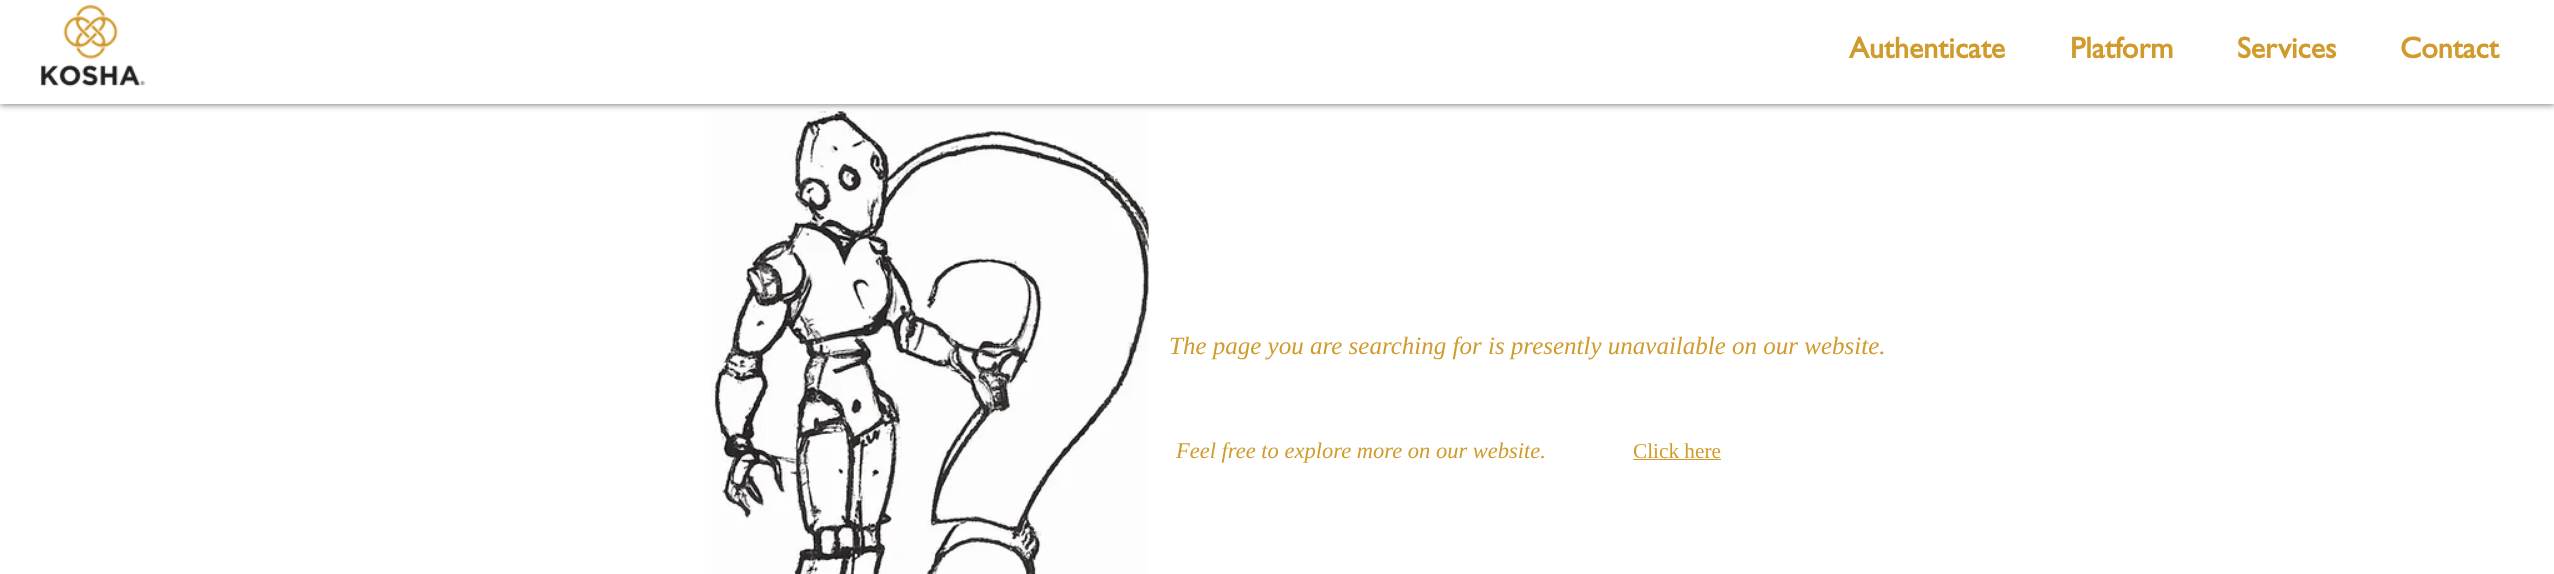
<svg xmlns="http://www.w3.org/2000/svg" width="2554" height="574">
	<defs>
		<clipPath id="clip1"><path d="M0 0H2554V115H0ZM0 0H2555V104H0Z" clip-rule="evenodd" /></clipPath>
	</defs>
	<rect width="100%" height="100%" fill="#FFFFFF" />
	<image x="711" y="111" width="438" height="463" href="assets/img2.png" />
	<g clip-path="url(#clip1)">
		<rect x="0" y="1" width="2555" height="104" fill="#000000" fill-opacity="0.5" filter="blur(3px)" />
	</g>
	<image x="40" y="5" width="106" height="82" href="assets/img1.png" />
	<g font-family="Gill Sans" font-size="30" font-weight="700" fill="#D09B2C">
		<text x="1849" y="58">Authenticate</text>
		<text x="2070" y="58">Platform</text>
		<text x="2237" y="58">Services</text>
		<text x="2400" y="58">Contact</text>
	</g>
	<text x="1169" y="354" font-family="Liberation Serif" font-size="25" font-style="italic" fill="#D09B2C">The page you are searching for is presently unavailable on our website.</text>
	<text x="1176" y="458" font-family="Liberation Serif" font-size="22.5" font-style="italic" fill="#D09B2C">Feel free to explore more on our website.</text>
	<text x="1633" y="458" font-family="Liberation Serif" font-size="21.25" fill="#D09B2C">Click here</text>
	<rect x="1633" y="459" width="88" height="1" fill="#D09B2C" />
</svg>
